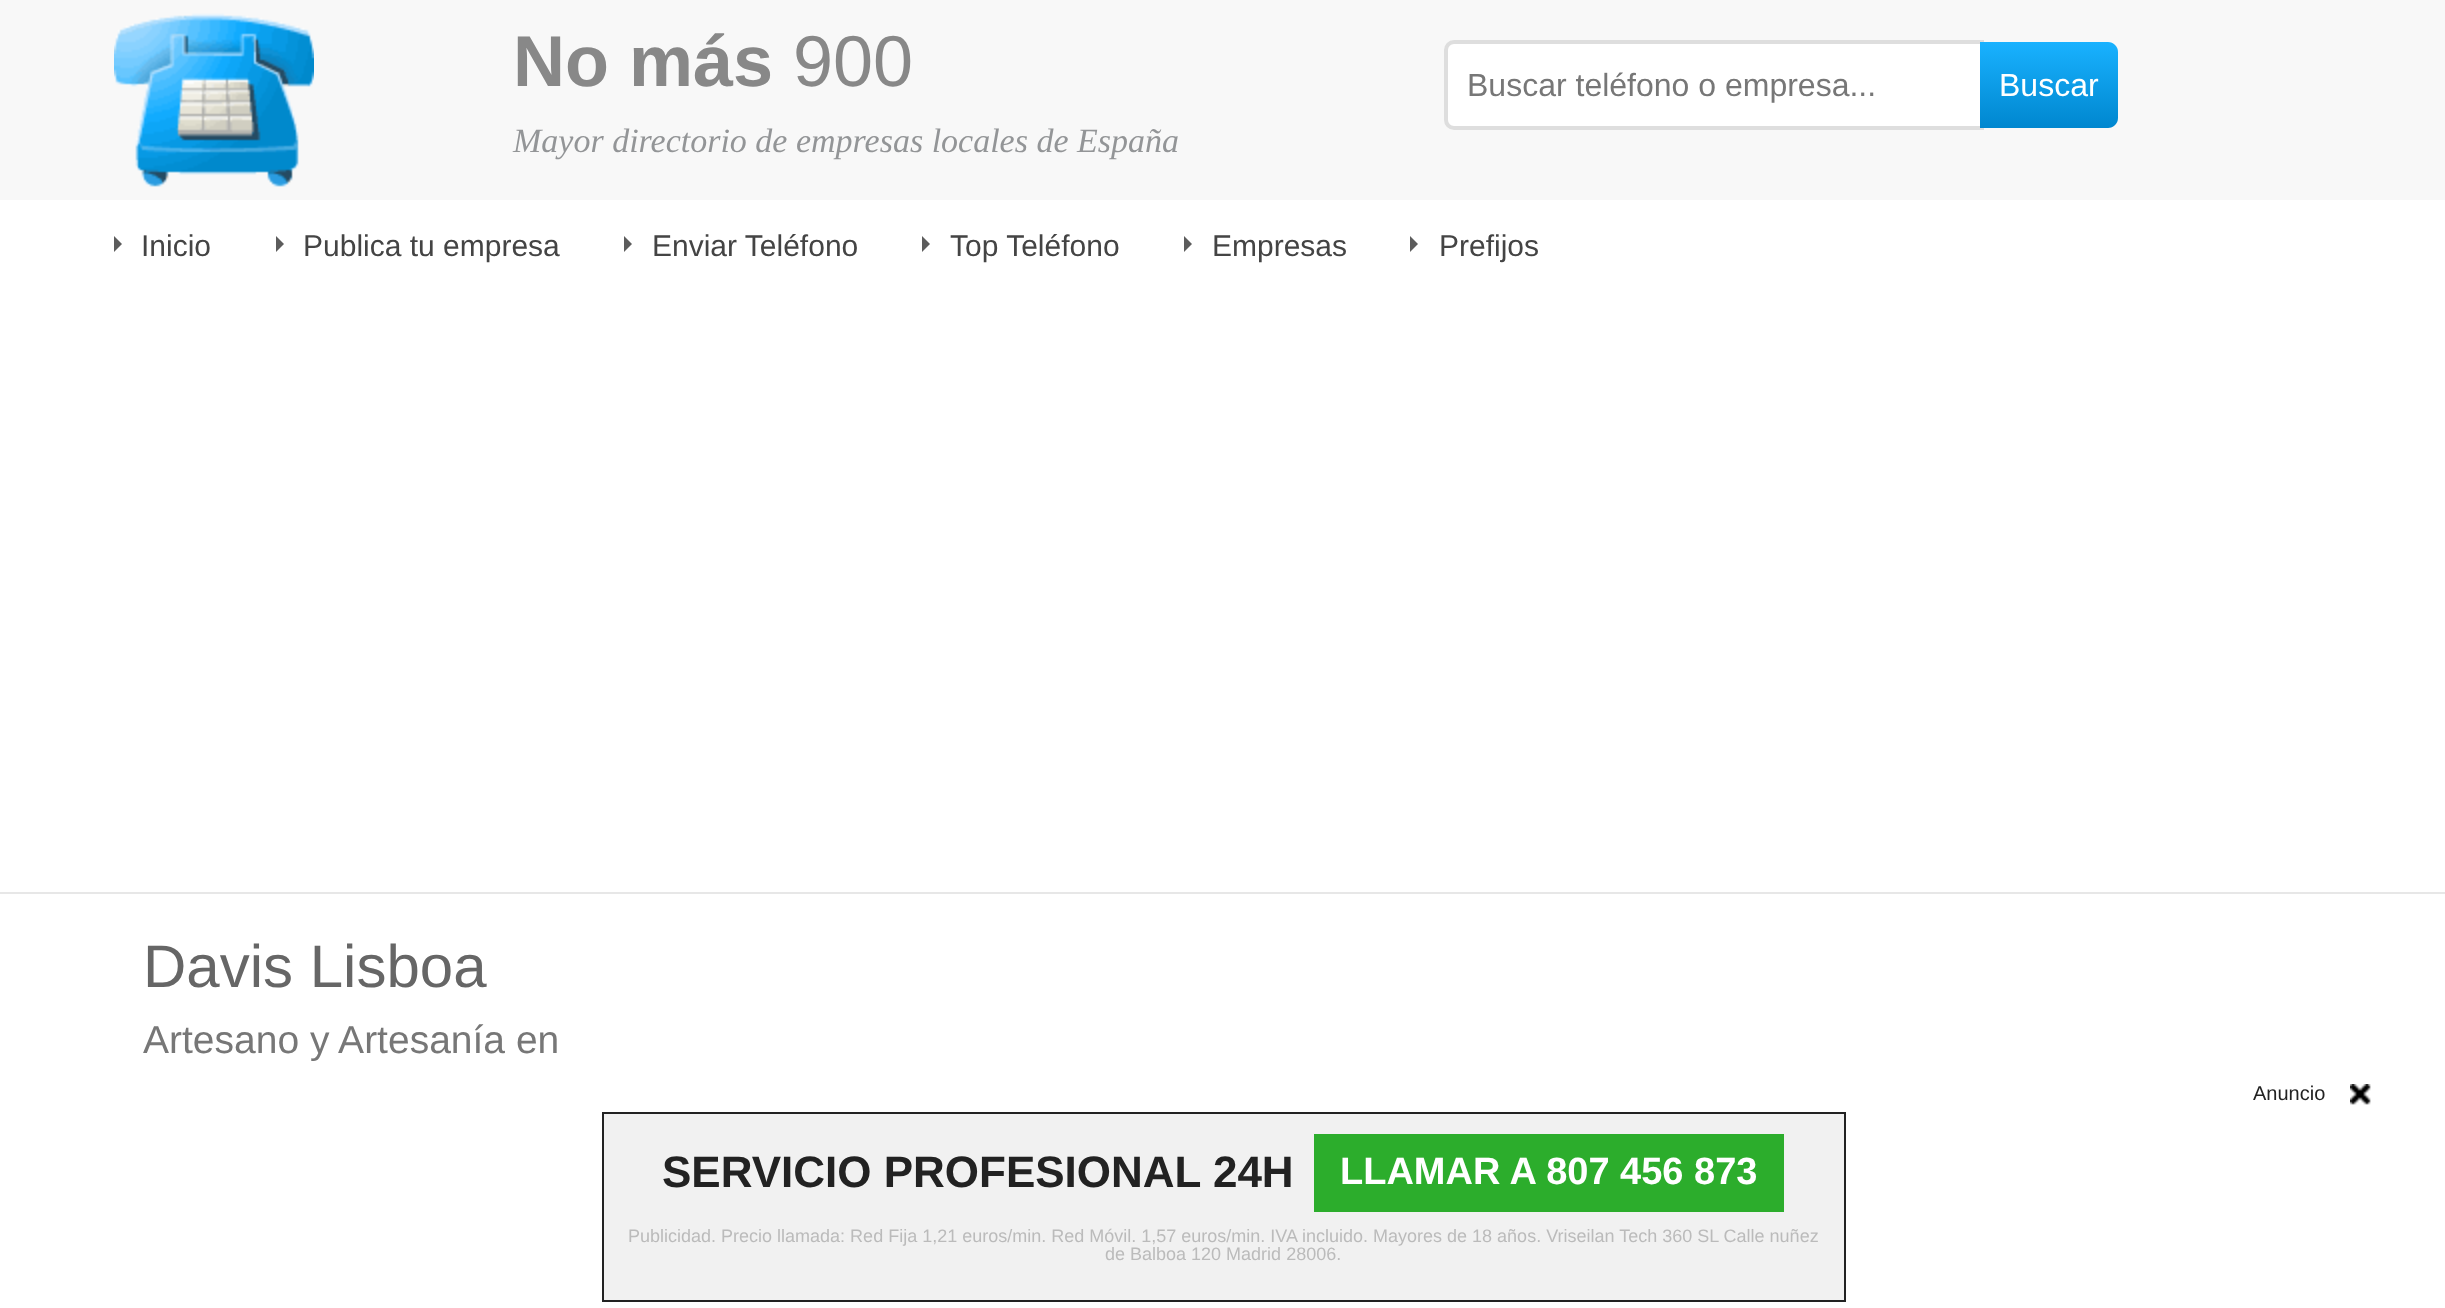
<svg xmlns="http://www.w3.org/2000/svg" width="2445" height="1308">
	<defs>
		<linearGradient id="g1" gradientUnits="userSpaceOnUse" x1="1980" y1="42" x2="1980" y2="128"><stop offset="0" stop-color="#19B2FF" /><stop offset="1" stop-color="#0087CF" /></linearGradient>
	</defs>
	<rect width="100%" height="100%" fill="#FFFFFF" />
	<rect x="0" y="0" width="2445" height="200" fill="#F8F8F8" />
	<rect x="0" y="892" width="2445" height="2" fill="#E7E7E7" />
	<image x="114" y="13" width="200" height="174" href="assets/img1.png" />
	<text x="513" y="86" font-family="Liberation Sans" font-size="72" font-weight="700" fill="#888888">No más</text>
	<text x="793" y="86" font-family="Liberation Sans" font-size="72" fill="#888888">900</text>
	<text x="513" y="152" font-family="Liberation Serif" font-size="34" font-style="italic" fill="#939597">Mayor directorio de empresas locales de España</text>
	<path d="M1454 42H1982V128H1454C1449.5 128 1446 124.5 1446 120V50C1446 45.5 1449.5 42 1454 42Z" fill="#FFFFFF" stroke="#DEDEDE" stroke-width="4" />
	<text x="1467" y="96" font-family="Liberation Sans" font-size="32" fill="#777777">Buscar teléfono o empresa...</text>
	<path d="M1980 42H2108C2113.5 42 2118 46.5 2118 52V118C2118 123.5 2113.5 128 2108 128H1980Z" fill="url(#g1)" />
	<text x="1999" y="96" font-family="Liberation Sans" font-size="32" fill="#FFFFFF">Buscar</text>
	<path d="M114 252V236L122 244Z" fill="#5C5C5C" />
	<text x="141" y="256" font-family="Liberation Sans" font-size="30" fill="#444444">Inicio</text>
	<path d="M276 252V236L284 244Z" fill="#5C5C5C" />
	<text x="303" y="256" font-family="Liberation Sans" font-size="30" fill="#444444">Publica tu empresa</text>
	<path d="M624 252V236L632 244Z" fill="#5C5C5C" />
	<text x="652" y="256" font-family="Liberation Sans" font-size="30" fill="#444444">Enviar Teléfono</text>
	<path d="M922 252V236L930 244Z" fill="#5C5C5C" />
	<text x="950" y="256" font-family="Liberation Sans" font-size="30" fill="#444444">Top Teléfono</text>
	<path d="M1184 252V236L1192 244Z" fill="#5C5C5C" />
	<text x="1212" y="256" font-family="Liberation Sans" font-size="30" fill="#444444">Empresas</text>
	<path d="M1410 252V236L1418 244Z" fill="#5C5C5C" />
	<text x="1439" y="256" font-family="Liberation Sans" font-size="30" fill="#444444">Prefijos</text>
	<text x="143" y="987" font-family="Liberation Sans" font-size="60" fill="#666666">Davis Lisboa</text>
	<text x="143" y="1053" font-family="Liberation Sans" font-size="39" fill="#777777">Artesano y Artesanía en</text>
	<text x="2253" y="1100" font-family="Liberation Sans" font-size="20" fill="#222222">Anuncio</text>
	<image x="2350" y="1084" width="21" height="21" href="assets/img2.png" />
	<rect x="603" y="1113" width="1242" height="188" fill="#F1F1F1" stroke="#222222" stroke-width="2" />
	<text x="662" y="1187" font-family="Liberation Sans" font-size="44" font-weight="700" fill="#222222">SERVICIO PROFESIONAL 24H</text>
	<rect x="1314" y="1134" width="470" height="78" fill="#2CAD2C" />
	<text x="1340" y="1184" font-family="Liberation Sans" font-size="38" font-weight="700" fill="#FFFFFF">LLAMAR A 807 456 873</text>
	<g font-family="Liberation Sans" font-size="18" fill="#BBBBBB">
		<text x="628" y="1242">Publicidad. Precio llamada: Red Fija 1,21 euros/min. Red Móvil. 1,57 euros/min. IVA incluido. Mayores de 18 años. Vriseilan Tech 360 SL Calle nuñez</text>
		<text x="1105" y="1260">de Balboa 120 Madrid 28006.</text>
	</g>
</svg>
